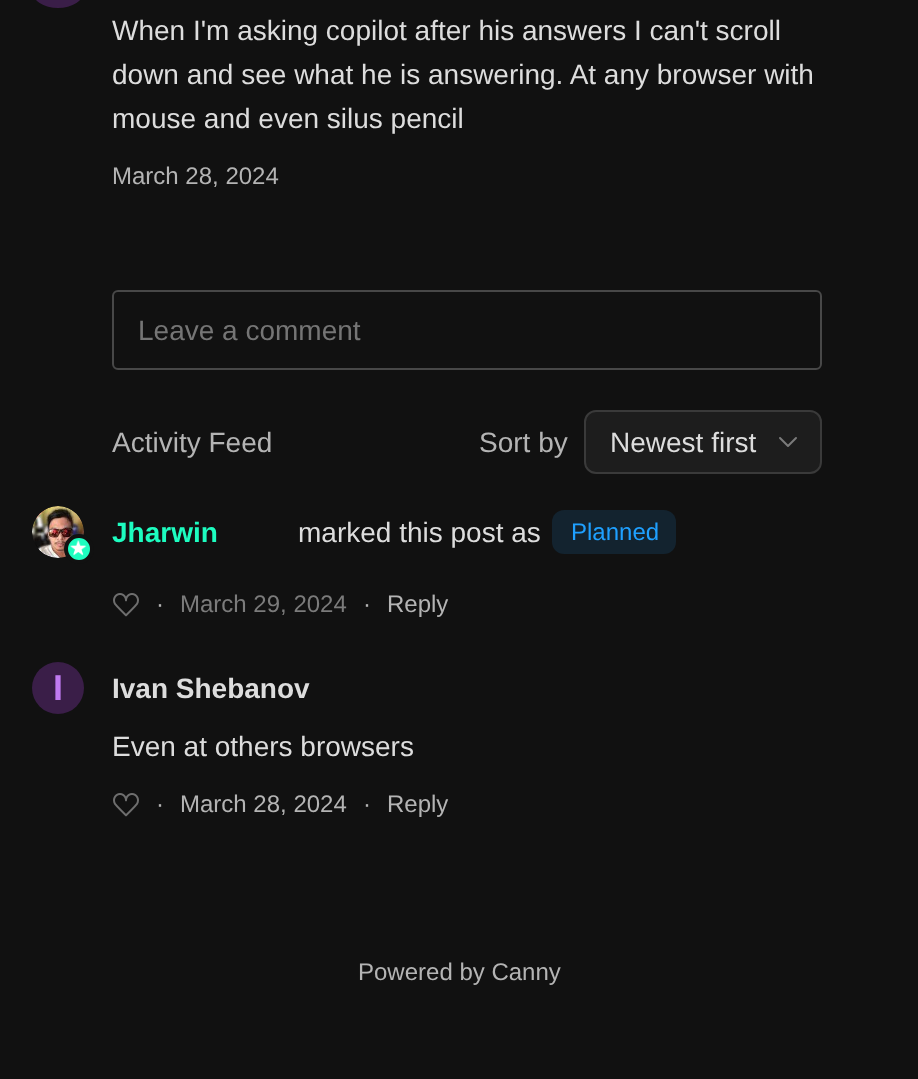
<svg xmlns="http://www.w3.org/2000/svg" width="918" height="1079">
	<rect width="100%" height="100%" fill="#111111" />
	<rect x="32" y="-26" width="52" height="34" rx="26" fill="#3A1E48" />
	<g font-family="Liberation Sans" font-size="28" fill="#DDDDDD">
		<text x="112" y="40">When I'm asking copilot after his answers I can't scroll</text>
		<text x="112" y="84">down and see what he is answering. At any browser with</text>
		<text x="112" y="128">mouse and even silus pencil</text>
	</g>
	<text x="112" y="184" font-family="Liberation Sans" font-size="24" fill="#B4B4B4">March 28, 2024</text>
	<rect x="113" y="291" width="708" height="78" rx="5" fill="none" stroke="#484848" stroke-width="2" />
	<text x="138" y="340" font-family="Liberation Sans" font-size="28" fill="#757575">Leave a comment</text>
	<g font-family="Liberation Sans" font-size="28" fill="#B4B4B4">
		<text x="112" y="452">Activity Feed</text>
		<text x="479" y="452">Sort by</text>
	</g>
	<rect x="585" y="411" width="236" height="62" rx="11" fill="#1D1D1D" stroke="#3A3A3A" stroke-width="2" />
	<text x="610" y="452" font-family="Liberation Sans" font-size="28" fill="#DDDDDD">Newest first</text>
	<path d="M780 438L788 446L796 438" fill="none" stroke="#7B7B7B" stroke-width="2" stroke-linecap="round" stroke-linejoin="round" />
	<image x="32" y="506" width="52" height="52" href="assets/img1.png" />
	<circle cx="79" cy="549" r="13" fill="#1DFDC0" stroke="#111111" stroke-width="4" />
	<image x="70" y="540" width="17" height="16" href="assets/img2.png" />
	<text x="112" y="542" font-family="Liberation Sans" font-size="28" font-weight="700" fill="#1DFDC0">Jharwin</text>
	<text x="298" y="542" font-family="Liberation Sans" font-size="28" fill="#DDDDDD">marked this post as</text>
	<rect x="552" y="510" width="124" height="44" rx="12" fill="#13232F" />
	<text x="571" y="540" font-family="Liberation Sans" font-size="24" fill="#1FA0FF">Planned</text>
	<image x="113" y="593" width="26" height="24" href="assets/img3.png" />
	<text x="156" y="612" font-family="Liberation Sans" font-size="24" fill="#B4B4B4">·</text>
	<text x="180" y="612" font-family="Liberation Sans" font-size="24" fill="#7B7B7B">March 29, 2024</text>
	<g font-family="Liberation Sans" font-size="24" fill="#B4B4B4">
		<text x="363" y="612">·</text>
		<text x="387" y="612">Reply</text>
	</g>
	<circle cx="58" cy="688" r="26" fill="#3A1E48" />
	<text x="53" y="700" font-family="Liberation Sans" font-size="36" font-weight="700" fill="#BF7AF0">I</text>
	<text x="112" y="698" font-family="Liberation Sans" font-size="28" font-weight="700" fill="#DDDDDD">Ivan Shebanov</text>
	<text x="112" y="756" font-family="Liberation Sans" font-size="28" fill="#DDDDDD">Even at others browsers</text>
	<image x="113" y="793" width="26" height="24" href="assets/img3.png" />
	<g font-family="Liberation Sans" font-size="24" fill="#B4B4B4">
		<text x="156" y="812">·</text>
		<text x="180" y="812">March 28, 2024</text>
		<text x="363" y="812">·</text>
		<text x="387" y="812">Reply</text>
		<text x="358" y="980">Powered by Canny</text>
	</g>
</svg>
